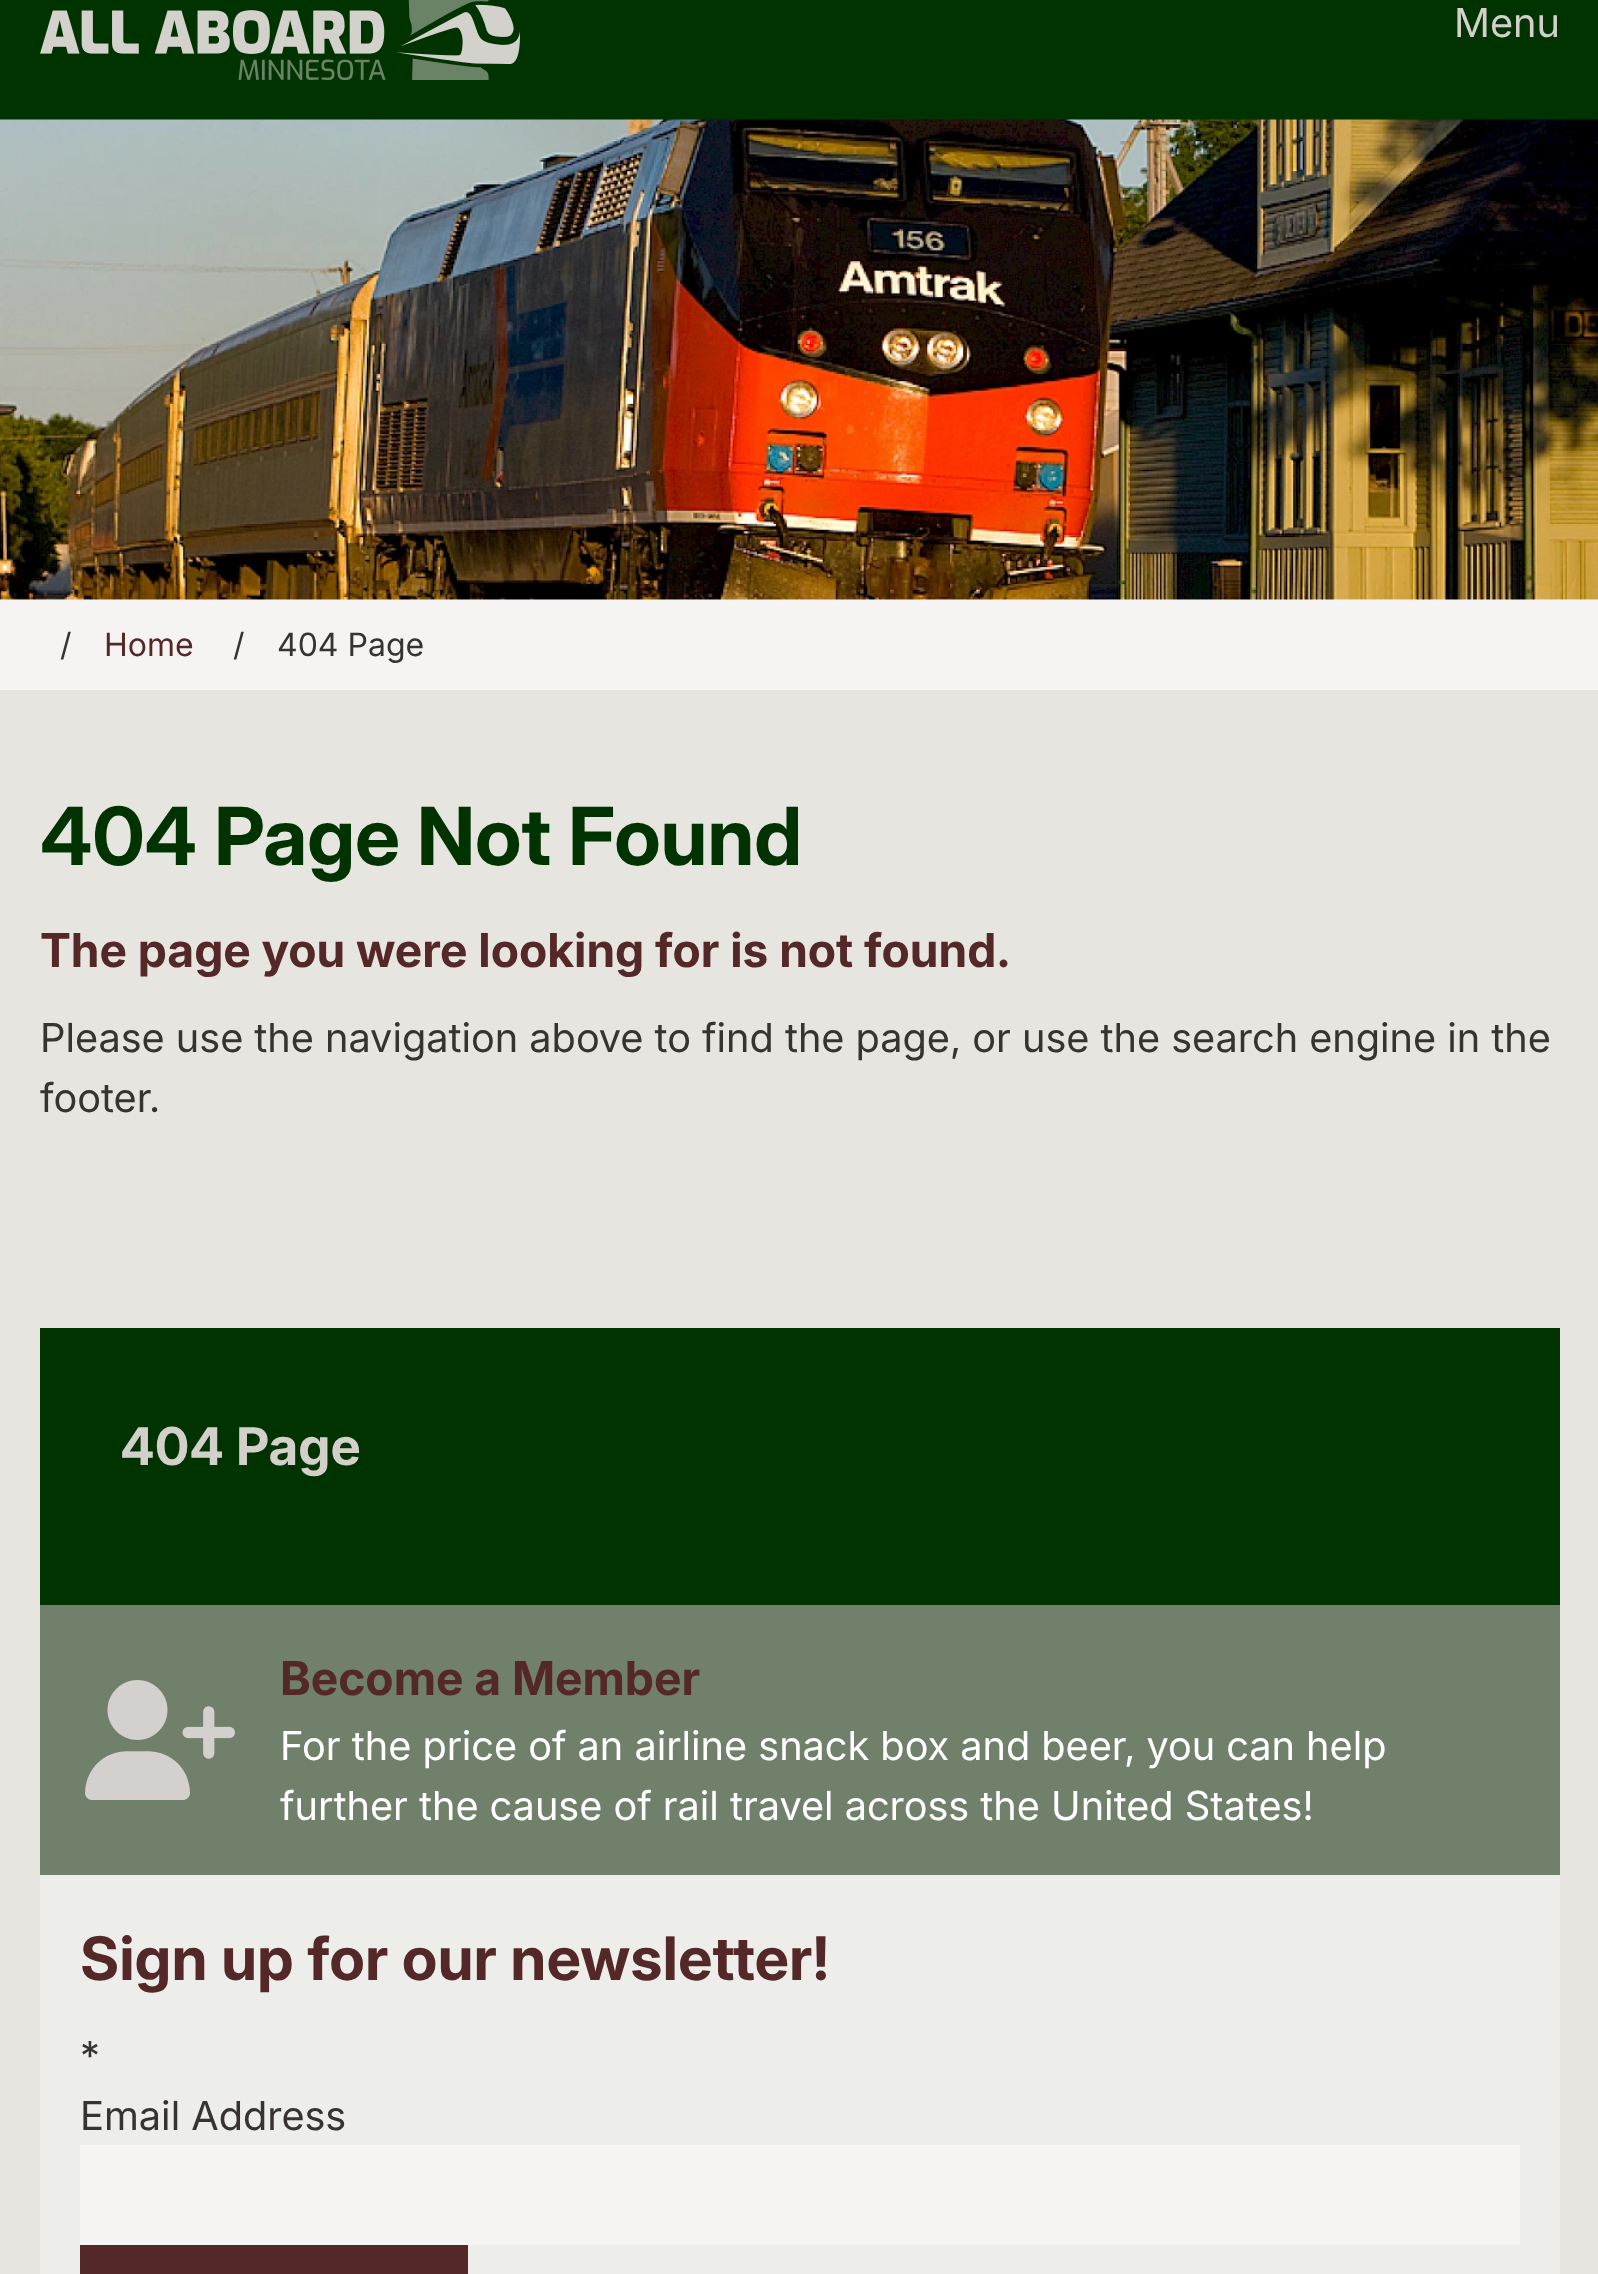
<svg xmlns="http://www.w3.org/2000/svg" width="1598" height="2274">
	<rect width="100%" height="100%" fill="#FFFFFF" />
	<rect x="0" y="0" width="1598" height="120" fill="#003300" />
	<image x="40" y="0" width="480" height="80" href="assets/img1.png" />
	<text x="1454" y="37" font-family="Inter" font-size="40" fill="#D3D0CB">Menu</text>
	<image x="0" y="119" width="1598" height="481" href="assets/img2.png" />
	<rect x="0" y="600" width="1598" height="90" fill="#F5F4F2" />
	<text x="60" y="656" font-family="'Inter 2'" font-size="32" fill="#363330">/</text>
	<text x="104" y="656" font-family="'Inter 2'" font-size="32" fill="#542828">Home</text>
	<g font-family="'Inter 2'" font-size="32" fill="#363330">
		<text x="233" y="656">/</text>
		<text x="277" y="656">404 Page</text>
	</g>
	<rect x="0" y="690" width="1598" height="1584" fill="#E7E5DF" />
	<text x="40" y="865" font-family="Inter" font-size="80" font-weight="700" fill="#003300">404 Page Not Found</text>
	<text x="40" y="967" font-family="'Inter 2'" font-size="46.8" font-weight="700" fill="#542828">The page you were looking for is not found.</text>
	<g font-family="Inter" font-size="40" fill="#363330">
		<text x="40" y="1052">Please use the navigation above to find the page, or use the search engine in the</text>
		<text x="40" y="1112">footer.</text>
	</g>
	<rect x="40" y="1875" width="1520" height="399" fill="#EDEDEA" />
	<rect x="40" y="1328" width="1520" height="277" fill="#003300" />
	<text x="120" y="1465" font-family="'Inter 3'" font-size="52" font-weight="700" fill="#D3D0CB">404 Page</text>
	<rect x="40" y="1605" width="1520" height="270" fill="#70806A" />
	<image x="85" y="1680" width="150" height="120" href="assets/img3.png" />
	<text x="280" y="1695" font-family="'Inter 2'" font-size="46.8" font-weight="700" fill="#542828">Become a Member</text>
	<g font-family="Inter" font-size="40" fill="#FFFFFF">
		<text x="280" y="1760">For the price of an airline snack box and beer, you can help</text>
		<text x="280" y="1820">further the cause of rail travel across the United States!</text>
	</g>
	<text x="80" y="1980" font-family="'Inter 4'" font-size="60" font-weight="700" fill="#542828">Sign up for our newsletter!</text>
	<g font-family="Inter" font-size="40" fill="#363330">
		<text x="80" y="2070">*</text>
		<text x="80" y="2130">Email Address</text>
	</g>
	<rect x="80" y="2145" width="1440" height="100" fill="#F5F4F2" />
	<rect x="80" y="2245" width="388" height="29" fill="#542828" />
</svg>
